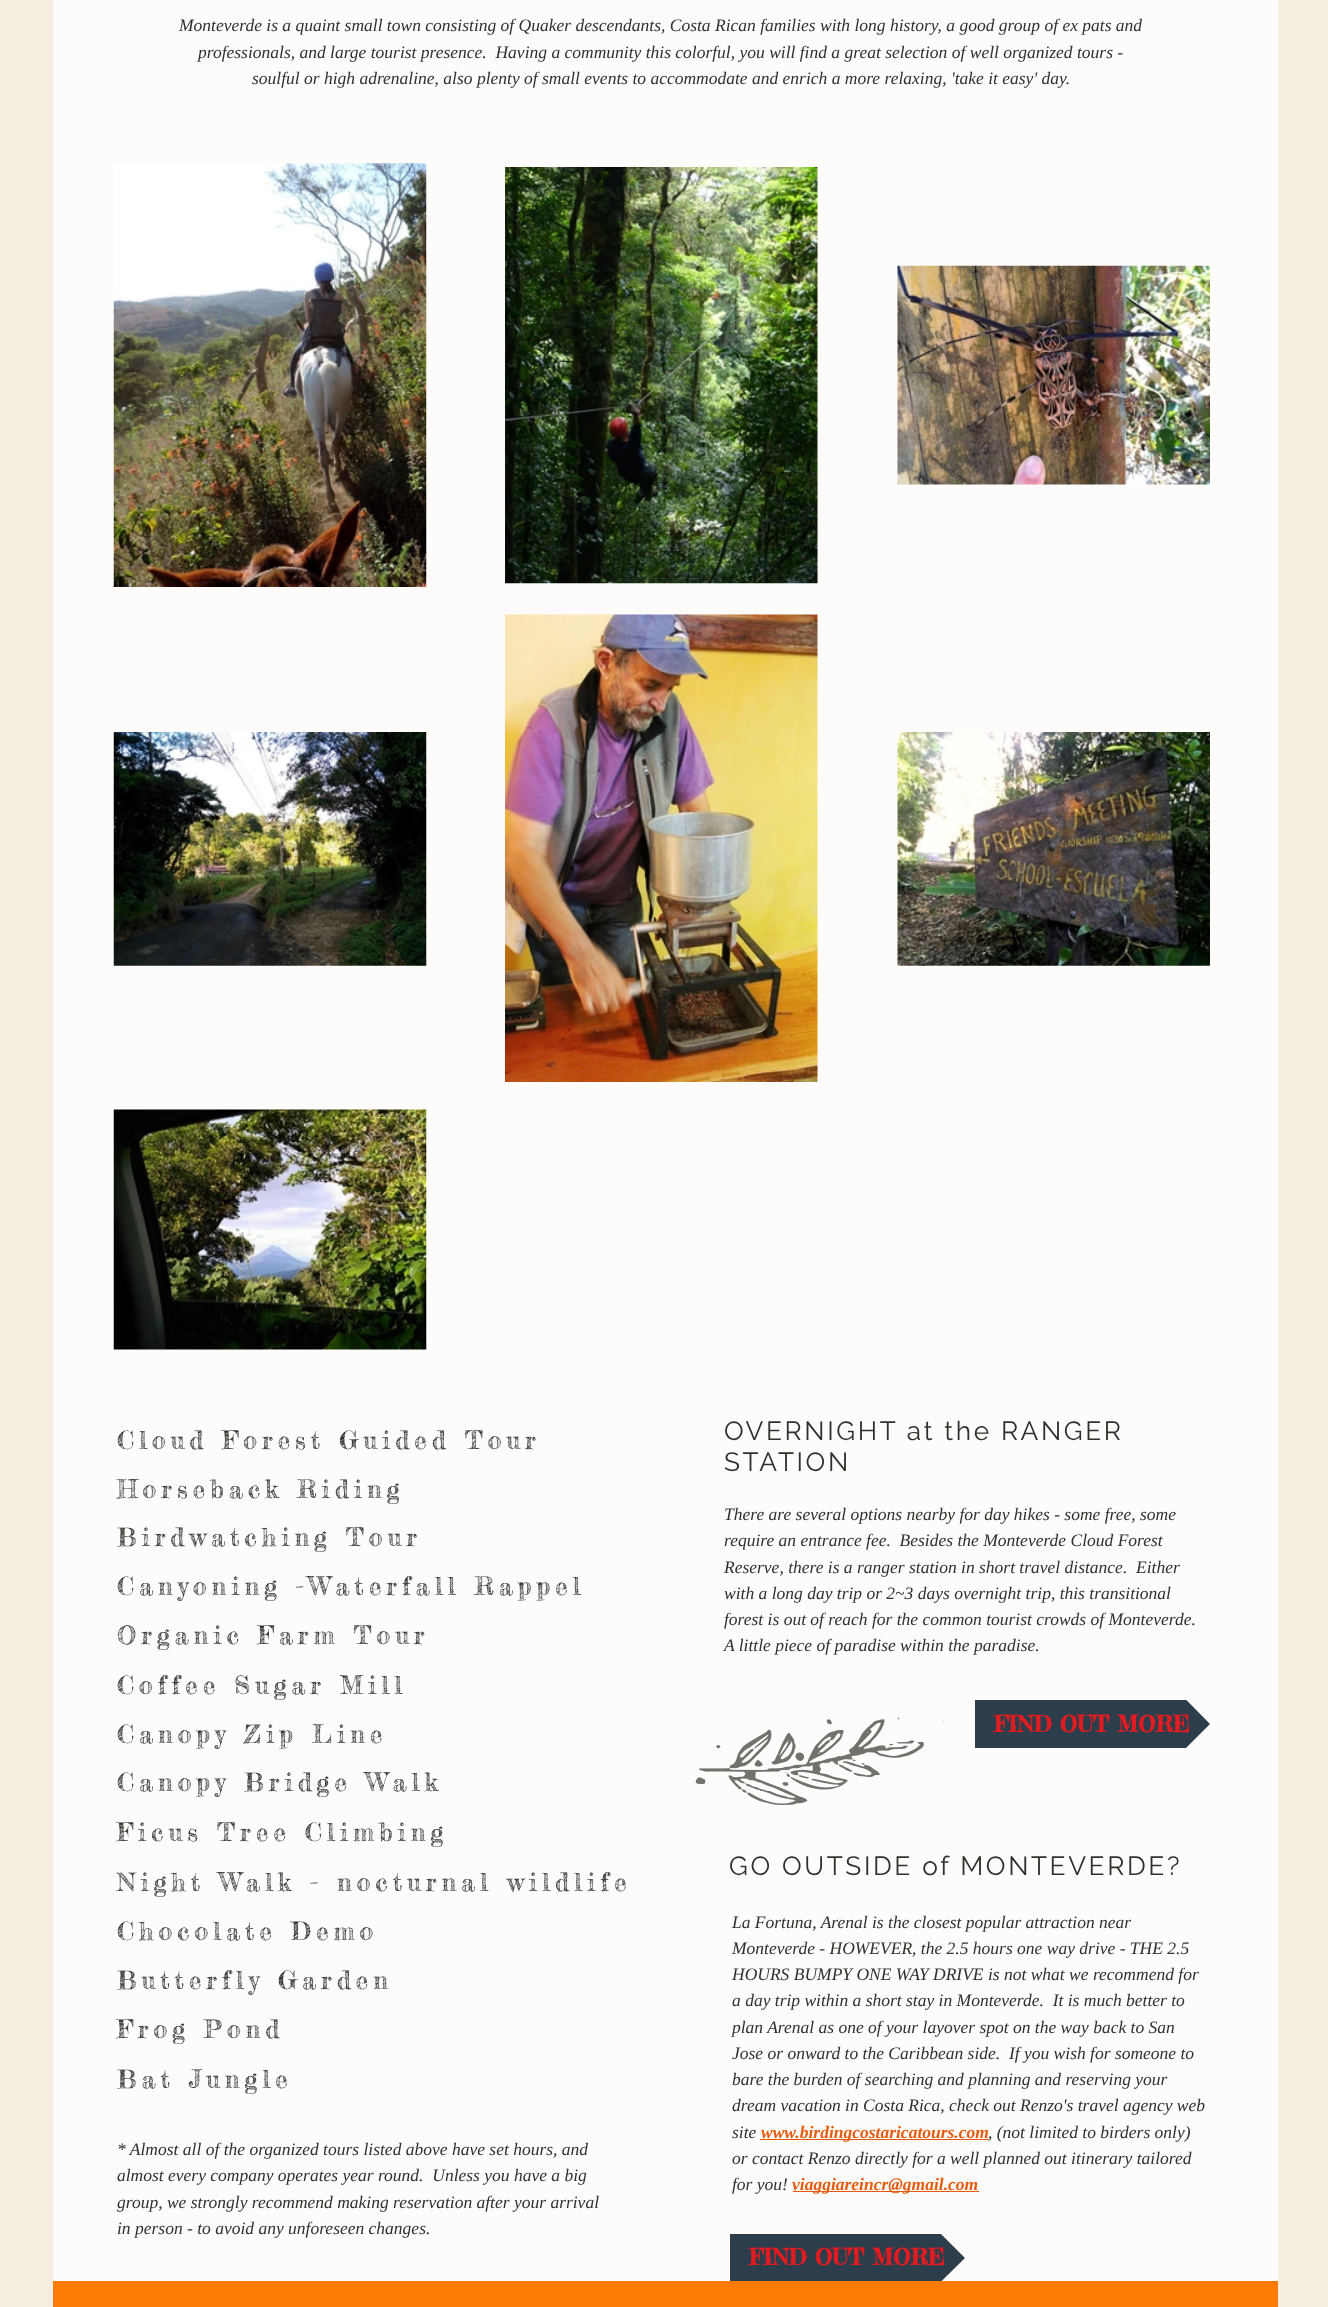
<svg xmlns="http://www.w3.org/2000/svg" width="1328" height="2307">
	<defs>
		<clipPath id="clip1"><rect x="975" y="1700" width="235" height="48" /></clipPath>
		<clipPath id="clip2"><rect x="730" y="2234" width="235" height="47" /></clipPath>
	</defs>
	<rect width="100%" height="100%" fill="#F7EEE2" />
	<rect x="53" y="0" width="1225" height="2281" fill="#FEFCFB" />
	<g font-family="Liberation Serif" font-size="17.5" font-style="italic" fill="#31302D">
		<text x="179" y="31">Monteverde is a quaint small town consisting of Quaker descendants, Costa Rican families with long history, a good group of ex pats and</text>
		<text x="198" y="58" xml:space="preserve">professionals, and large tourist presence.  Having a community this colorful, you will find a great selection of well organized tours -</text>
		<text x="252" y="84">soulful or high adrenaline, also plenty of small events to accommodate and enrich a more relaxing, 'take it easy' day.</text>
	</g>
	<image x="113" y="163" width="314" height="424" href="assets/img1.png" />
	<image x="505" y="167" width="313" height="417" href="assets/img2.png" />
	<image x="897" y="265" width="313" height="220" href="assets/img3.png" />
	<image x="113" y="732" width="314" height="234" href="assets/img4.png" />
	<image x="505" y="614" width="313" height="468" href="assets/img5.png" />
	<image x="897" y="732" width="313" height="234" href="assets/img6.png" />
	<image x="113" y="1109" width="314" height="241" href="assets/img7.png" />
	<text x="117" y="1449" font-family="Fredericka the Great" font-size="25" letter-spacing="5" fill="#31302D">Cloud Forest Guided Tour</text>
	<g font-family="Raleway" font-size="26.25" letter-spacing="2.6" fill="#31302D">
		<text x="724" y="1440">OVERNIGHT at the RANGER</text>
		<text x="724" y="1471">STATION</text>
	</g>
	<g font-family="Fredericka the Great" font-size="25" letter-spacing="5" fill="#31302D">
		<text x="117" y="1498">Horseback Riding</text>
		<text x="117" y="1546">Birdwatching Tour</text>
	</g>
	<g font-family="Liberation Serif" font-size="17.5" font-style="italic" fill="#31302D">
		<text x="724" y="1520">There are several options nearby for day hikes - some free, some</text>
		<text x="724" y="1546" xml:space="preserve">require an entrance fee.  Besides the Monteverde Cloud Forest</text>
		<text x="724" y="1573" xml:space="preserve">Reserve, there is a ranger station in short travel distance.  Either</text>
		<text x="724" y="1599">with a long day trip or 2~3 days overnight trip, this transitional</text>
		<text x="724" y="1625">forest is out of reach for the common tourist crowds of Monteverde.</text>
		<text x="724" y="1651">A little piece of paradise within the paradise.</text>
	</g>
	<g font-family="Fredericka the Great" font-size="25" letter-spacing="5" fill="#31302D">
		<text x="117" y="1595">Canyoning -Waterfall Rappel</text>
		<text x="117" y="1644">Organic Farm Tour</text>
		<text x="117" y="1694">Coffee Sugar Mill</text>
		<text x="117" y="1743">Canopy Zip Line</text>
	</g>
	<image x="695" y="1717" width="250" height="88" href="assets/img8.png" />
	<rect x="975" y="1700" width="173" height="48" fill="#2C3D4B" />
	<g clip-path="url(#clip1)">
		<path d="M1210 1724H1148V1661ZM1148 1724H1210L1148 1786Z" fill="#2C3D4B" />
	</g>
	<text x="994" y="1732" font-family="Fredericka the Great" font-size="22.5" font-weight="700" fill="#E21C21">FIND OUT MORE</text>
	<g font-family="Fredericka the Great" font-size="25" letter-spacing="5" fill="#31302D">
		<text x="117" y="1791">Canopy Bridge Walk</text>
		<text x="117" y="1841">Ficus Tree Climbing</text>
	</g>
	<text x="729" y="1875" font-family="Raleway" font-size="26.25" letter-spacing="2.6" fill="#31302D">GO OUTSIDE of MONTEVERDE?</text>
	<g font-family="Fredericka the Great" font-size="25" letter-spacing="5" fill="#31302D">
		<text x="117" y="1891">Night Walk - nocturnal wildlife</text>
		<text x="117" y="1940">Chocolate Demo</text>
	</g>
	<g font-family="Liberation Serif" font-size="17.5" font-style="italic" fill="#31302D">
		<text x="732" y="1928">La Fortuna, Arenal is the closest popular attraction near</text>
		<text x="732" y="1954">Monteverde - HOWEVER, the 2.5 hours one way drive - THE 2.5</text>
		<text x="732" y="1980">HOURS BUMPY ONE WAY DRIVE is not what we recommend for</text>
		<text x="732" y="2006" xml:space="preserve">a day trip within a short stay in Monteverde.  It is much better to</text>
		<text x="732" y="2033">plan Arenal as one of your layover spot on the way back to San</text>
		<text x="732" y="2059" xml:space="preserve">Jose or onward to the Caribbean side.  If you wish for someone to</text>
		<text x="732" y="2085">bare the burden of searching and planning and reserving your</text>
		<text x="732" y="2111">dream vacation in Costa Rica, check out Renzo's travel agency web</text>
		<text x="732" y="2138">site</text>
	</g>
	<rect x="760" y="2139" width="229" height="1" fill="#E85A0D" />
	<text x="761" y="2138" font-family="Liberation Serif" font-size="17.5" font-weight="700" font-style="italic" fill="#E85A0D">www.birdingcostaricatours.com</text>
	<g font-family="Liberation Serif" font-size="17.5" font-style="italic" fill="#31302D">
		<text x="988" y="2138">, (not limited to birders only)</text>
		<text x="732" y="2164">or contact Renzo directly for a well planned out itinerary tailored</text>
		<text x="732" y="2190">for you!</text>
	</g>
	<rect x="793" y="2191" width="186" height="1" fill="#E85A0D" />
	<text x="792" y="2190" font-family="Liberation Serif" font-size="17.5" font-weight="700" font-style="italic" fill="#E85A0D">viaggiareincr@gmail.com</text>
	<g font-family="Fredericka the Great" font-size="25" letter-spacing="5" fill="#31302D">
		<text x="117" y="1989">Butterfly Garden</text>
		<text x="117" y="2038">Frog Pond</text>
		<text x="117" y="2088">Bat Jungle</text>
	</g>
	<g font-family="Liberation Serif" font-size="17.5" font-style="italic" fill="#31302D">
		<text x="117" y="2155">* Almost all of the organized tours listed above have set hours, and</text>
		<text x="117" y="2181" xml:space="preserve">almost every company operates year round.  Unless you have a big</text>
		<text x="117" y="2208">group, we strongly recommend making reservation after your arrival</text>
		<text x="117" y="2234">in person - to avoid any unforeseen changes.</text>
	</g>
	<rect x="730" y="2234" width="172" height="47" fill="#2C3D4B" />
	<g clip-path="url(#clip2)">
		<path d="M965 2258H902V2195Z" fill="#2C3D4B" />
	</g>
	<path d="M902 2258H965L902 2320Z" fill="#2C3D4B" />
	<text x="749" y="2265" font-family="Fredericka the Great" font-size="22.5" font-weight="700" fill="#E21C21">FIND OUT MORE</text>
	<rect x="53" y="2281" width="1225" height="26" fill="#FF7B08" />
</svg>
